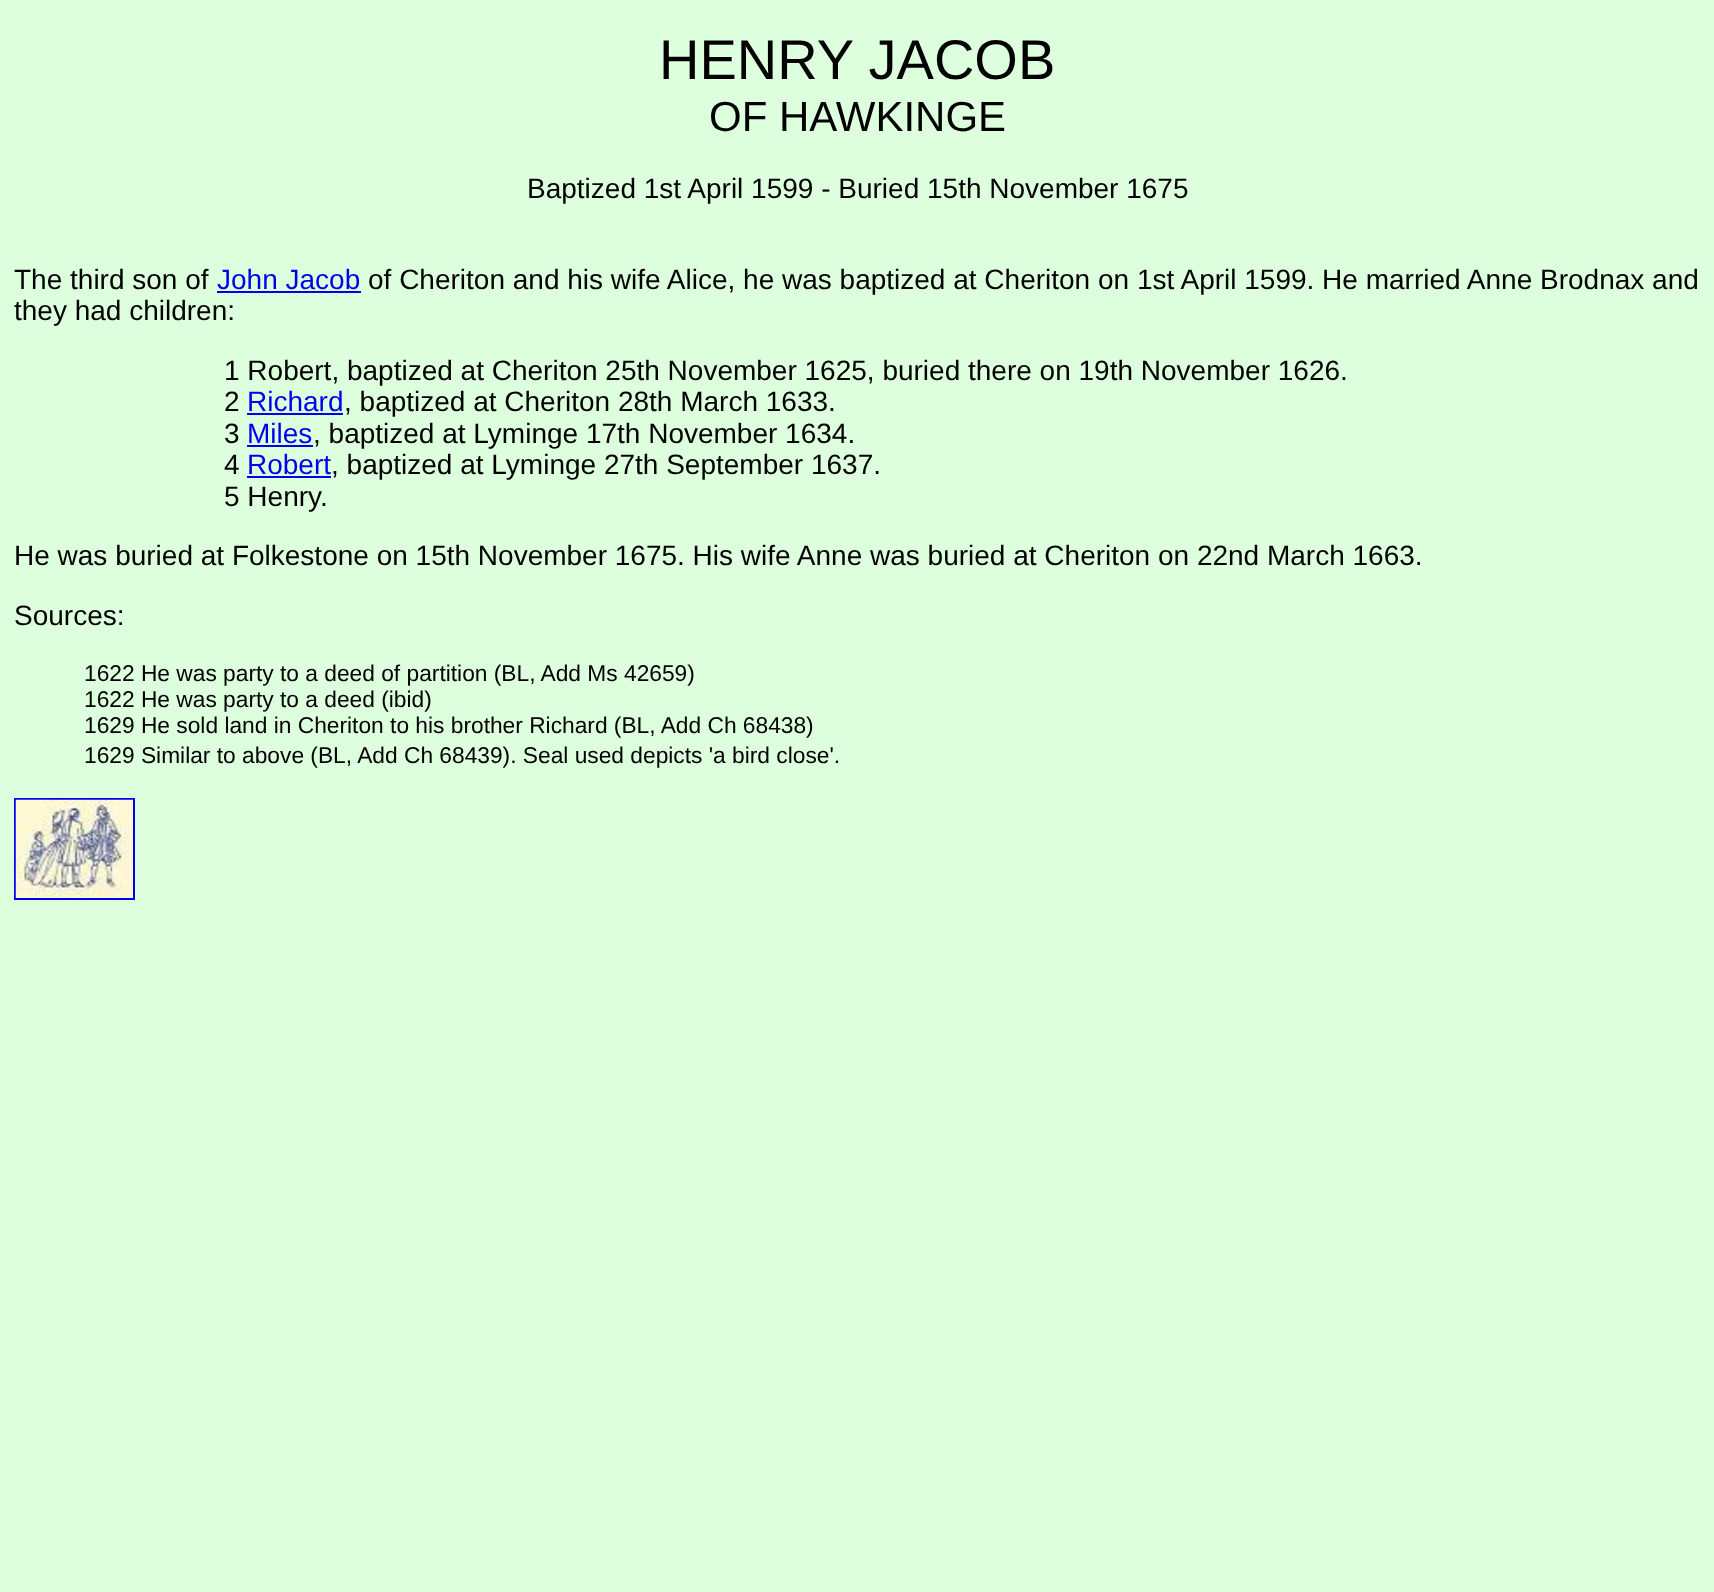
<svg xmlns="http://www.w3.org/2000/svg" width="1714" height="1592">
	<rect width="100%" height="100%" fill="#DDFFDD" />
	<text x="659" y="79" font-family="Liberation Sans" font-size="56" fill="#000000">HENRY JACOB</text>
	<text x="709" y="131" font-family="Liberation Sans" font-size="42" fill="#000000">OF HAWKINGE</text>
	<g font-family="Liberation Sans" font-size="28" fill="#000000">
		<text x="527" y="198">Baptized 1st April 1599 - Buried 15th November 1675</text>
		<text x="14" y="289">The third son of</text>
	</g>
	<text x="217" y="289" font-family="Liberation Sans" font-size="28" fill="#0000EE">John Jacob</text>
	<rect x="217" y="291" width="144" height="2" fill="#0000EE" />
	<g font-family="Liberation Sans" font-size="28" fill="#000000">
		<text x="368" y="289">of Cheriton and his wife Alice, he was baptized at Cheriton on 1st April 1599. He married Anne Brodnax and</text>
		<text x="14" y="320">they had children:</text>
		<text x="224" y="380">1 Robert, baptized at Cheriton 25th November 1625, buried there on 19th November 1626.</text>
		<text x="224" y="411">2</text>
	</g>
	<text x="247" y="411" font-family="Liberation Sans" font-size="28" fill="#0000EE">Richard</text>
	<text x="344" y="411" font-family="Liberation Sans" font-size="28" fill="#000000">, baptized at Cheriton 28th March 1633.</text>
	<rect x="247" y="413" width="96" height="2" fill="#0000EE" />
	<text x="224" y="443" font-family="Liberation Sans" font-size="28" fill="#000000">3</text>
	<text x="247" y="443" font-family="Liberation Sans" font-size="28" fill="#0000EE">Miles</text>
	<text x="313" y="443" font-family="Liberation Sans" font-size="28" fill="#000000">, baptized at Lyminge 17th November 1634.</text>
	<rect x="247" y="445" width="66" height="2" fill="#0000EE" />
	<text x="224" y="474" font-family="Liberation Sans" font-size="28" fill="#000000">4</text>
	<text x="247" y="474" font-family="Liberation Sans" font-size="28" fill="#0000EE">Robert</text>
	<text x="331" y="474" font-family="Liberation Sans" font-size="28" fill="#000000">, baptized at Lyminge 27th September 1637.</text>
	<rect x="247" y="476" width="84" height="2" fill="#0000EE" />
	<g font-family="Liberation Sans" font-size="28" fill="#000000">
		<text x="224" y="506">5 Henry.</text>
		<text x="14" y="565">He was buried at Folkestone on 15th November 1675. His wife Anne was buried at Cheriton on 22nd March 1663.</text>
		<text x="14" y="625">Sources:</text>
	</g>
	<g font-family="Liberation Sans" font-size="22.75" fill="#000000">
		<text x="84" y="681">1622 He was party to a deed of partition (BL, Add Ms 42659)</text>
		<text x="84" y="707">1622 He was party to a deed (ibid)</text>
		<text x="84" y="733">1629 He sold land in Cheriton to his brother Richard (BL, Add Ch 68438)</text>
		<text x="84" y="763">1629 Similar to above (BL, Add Ch 68439). Seal used depicts 'a bird close'.</text>
	</g>
	<rect x="15" y="799" width="119" height="100" fill="none" stroke="#0000EE" stroke-width="2" />
	<image x="15" y="799" width="118" height="99" href="assets/img1.png" />
</svg>
